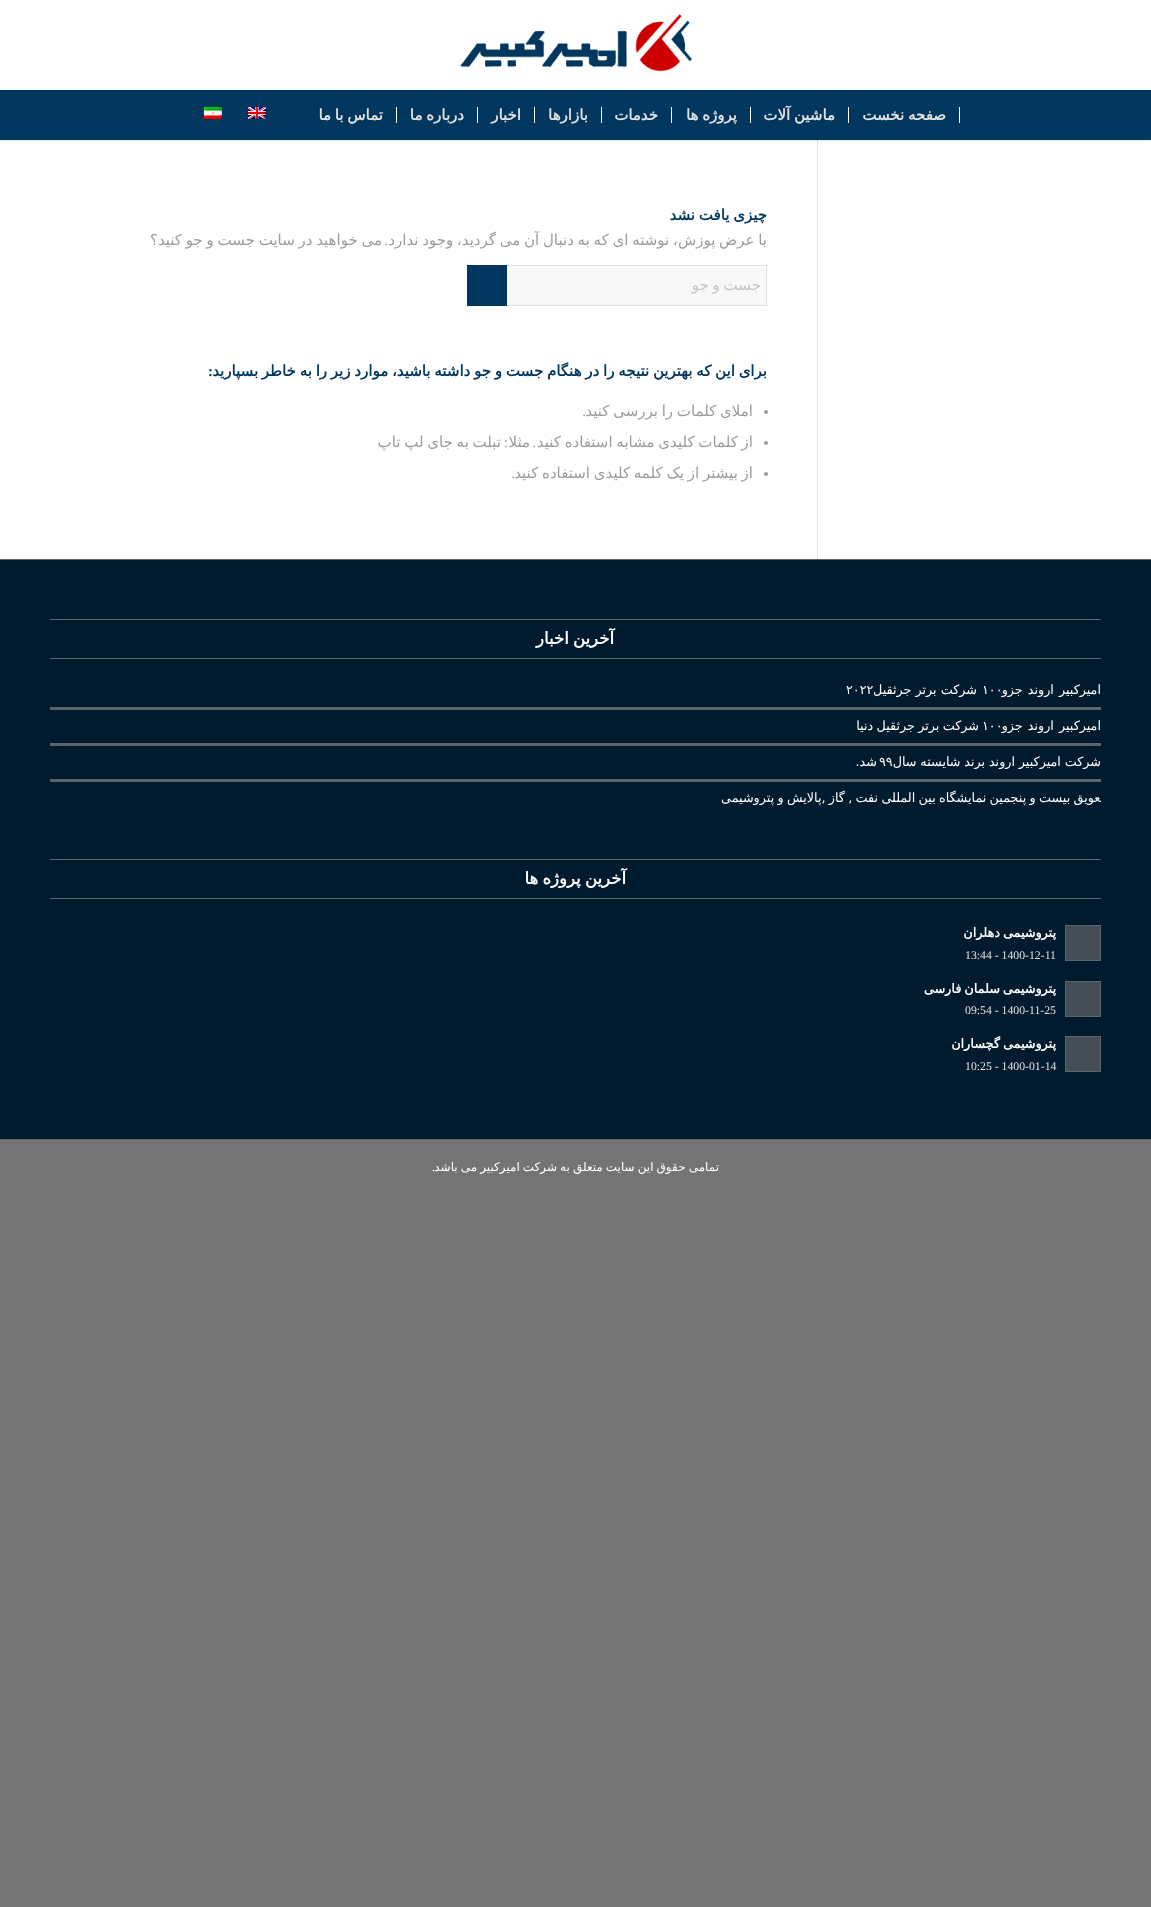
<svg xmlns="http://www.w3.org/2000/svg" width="1151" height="1907">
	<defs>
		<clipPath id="clip1"><rect x="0" y="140" width="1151" height="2" /></clipPath>
		<clipPath id="clip2"><rect x="50" y="605" width="1051" height="210" /></clipPath>
	</defs>
	<rect width="100%" height="100%" fill="#747474" />
	<rect x="0" y="0" width="1151" height="559" fill="#FFFFFF" />
	<rect x="817" y="140" width="1" height="419" fill="#E1E1E1" />
	<g clip-path="url(#clip1)">
		<rect x="-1" y="-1" width="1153" height="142" fill="#000000" fill-opacity="0.1" filter="blur(1px)" />
	</g>
	<image x="460" y="14" width="233" height="58" href="assets/img1.png" />
	<rect x="0" y="90" width="1151" height="50" fill="#01375E" />
	<text x="946" y="120" word-spacing="-1" font-family="DejaVu Sans" font-size="15" font-weight="700" direction="rtl" fill="#E1E1E1">صفحه نخست</text>
	<rect x="959" y="107" width="1" height="16" fill="#FFFFFF" />
	<text x="835" y="120" word-spacing="-1" font-family="DejaVu Sans" font-size="15" font-weight="700" direction="rtl" fill="#E1E1E1">ماشین آلات</text>
	<rect x="848" y="107" width="1" height="16" fill="#FFFFFF" />
	<text x="737" y="120" word-spacing="-1" font-family="DejaVu Sans" font-size="15" font-weight="700" direction="rtl" fill="#E1E1E1">پروژه ها</text>
	<rect x="750" y="107" width="1" height="16" fill="#FFFFFF" />
	<text x="658" y="120" font-family="DejaVu Sans" font-size="15" font-weight="700" direction="rtl" fill="#E1E1E1">خدمات</text>
	<rect x="671" y="107" width="1" height="16" fill="#FFFFFF" />
	<text x="588" y="120" font-family="DejaVu Sans" font-size="15" font-weight="700" direction="rtl" fill="#E1E1E1">بازارها</text>
	<rect x="601" y="107" width="1" height="16" fill="#FFFFFF" />
	<text x="521" y="120" font-family="DejaVu Sans" font-size="15" font-weight="700" direction="rtl" fill="#E1E1E1">اخبار</text>
	<rect x="534" y="107" width="1" height="16" fill="#FFFFFF" />
	<text x="464" y="120" word-spacing="-1" font-family="DejaVu Sans" font-size="15" font-weight="700" direction="rtl" fill="#E1E1E1">درباره ما</text>
	<rect x="477" y="107" width="1" height="16" fill="#FFFFFF" />
	<text x="383" y="120" word-spacing="-1" font-family="DejaVu Sans" font-size="15" font-weight="700" direction="rtl" fill="#E1E1E1">تماس با ما</text>
	<rect x="396" y="107" width="1" height="16" fill="#FFFFFF" />
	<image x="248" y="107" width="18" height="12" href="assets/img2.png" />
	<image x="204" y="107" width="18" height="12" href="assets/img3.png" />
	<text x="767" y="220" word-spacing="-1" font-family="DejaVu Sans" font-size="15" font-weight="700" direction="rtl" fill="#01375E">چیزی یافت نشد</text>
	<text x="767" y="245" word-spacing="-1" font-family="DejaVu Sans" font-size="15" direction="rtl" fill="#9C9C9C">با عرض پوزش، نوشته ای که به دنبال آن می گردید، وجود ندارد</text>
	<text x="388" y="245" font-family="Liberation Serif" font-size="15" direction="rtl" fill="#9C9C9C">.</text>
	<text x="382" y="245" word-spacing="-1" font-family="DejaVu Sans" font-size="15" direction="rtl" fill="#9C9C9C">می خواهید در سایت جست و جو کنید؟</text>
	<rect x="507" y="266" width="259" height="39" fill="#F8F8F8" />
	<rect x="467.5" y="265.5" width="299" height="40" fill="none" stroke="#E1E1E1" />
	<text x="761" y="290" word-spacing="-1" font-family="DejaVu Sans" font-size="15" direction="rtl" fill="#C5C5C5">جست و جو</text>
	<rect x="467" y="265" width="40" height="41" fill="#01375E" />
	<text x="767" y="376" word-spacing="-1" font-family="DejaVu Sans" font-size="15" font-weight="700" direction="rtl" fill="#01375E">برای این که بهترین نتیجه را در هنگام جست و جو داشته باشید، موارد زیر را به خاطر بسپارید</text>
	<text x="213" y="376" font-family="Liberation Serif" font-size="15" font-weight="700" direction="rtl" fill="#01375E">:</text>
	<circle cx="766" cy="412" r="2" fill="#9C9C9C" />
	<text x="753" y="416" word-spacing="-1" font-family="DejaVu Sans" font-size="15" direction="rtl" fill="#9C9C9C">املای کلمات را بررسی کنید</text>
	<text x="586" y="416" font-family="Liberation Serif" font-size="15" direction="rtl" fill="#9C9C9C">.</text>
	<circle cx="766" cy="443" r="2" fill="#9C9C9C" />
	<g font-family="DejaVu Sans" font-size="15" direction="rtl" fill="#9C9C9C">
		<text x="753" y="447" word-spacing="-1">از کلمات کلیدی مشابه استفاده کنید</text>
		<text x="530" y="447">مثلا</text>
	</g>
	<text x="508" y="447" font-family="Liberation Serif" font-size="15" direction="rtl" fill="#9C9C9C">:</text>
	<text x="501" y="447" word-spacing="-1" font-family="DejaVu Sans" font-size="15" direction="rtl" fill="#9C9C9C">تبلت به جای لپ تاپ</text>
	<text x="536" y="447" font-family="Liberation Serif" font-size="15" direction="rtl" fill="#9C9C9C">.</text>
	<circle cx="766" cy="474" r="2" fill="#9C9C9C" />
	<text x="753" y="478" word-spacing="-1" font-family="DejaVu Sans" font-size="15" direction="rtl" fill="#9C9C9C">از بیشتر از یک کلمه کلیدی استفاده کنید</text>
	<text x="515" y="478" font-family="Liberation Serif" font-size="15" direction="rtl" fill="#9C9C9C">.</text>
	<rect x="0" y="560" width="1151" height="579" fill="#011B2E" />
	<rect x="0" y="559" width="1151" height="1" fill="#5B646B" />
	<rect x="50" y="619" width="1051" height="1" fill="#5B646B" />
	<rect x="50" y="658" width="1051" height="1" fill="#5B646B" />
	<text x="614" y="644" word-spacing="-1" font-family="DejaVu Sans" font-size="16.5" font-weight="700" direction="rtl" fill="#FFFFFF">آخرین اخبار</text>
	<text x="1101" y="694" word-spacing="1" font-family="DejaVu Sans" font-size="12.75" direction="rtl" fill="#FFFFFF">امیرکبیر اروند جزو</text>
	<text x="982" y="694" font-family="DejaVu Sans" font-size="12.75" fill="#FFFFFF">۱۰۰</text>
	<text x="977" y="694" font-family="DejaVu Sans" font-size="12.75" direction="rtl" fill="#FFFFFF">شرکت برتر جرثقیل</text>
	<text x="846" y="694" font-family="DejaVu Sans" font-size="12.75" fill="#FFFFFF">۲۰۲۲</text>
	<rect x="50" y="707" width="1051" height="3" fill="#5B646B" />
	<text x="1101" y="730" word-spacing="1" font-family="DejaVu Sans" font-size="12.75" direction="rtl" fill="#FFFFFF">امیرکبیر اروند جزو</text>
	<text x="982" y="730" font-family="DejaVu Sans" font-size="12.75" fill="#FFFFFF">۱۰۰</text>
	<text x="979" y="730" word-spacing="-0.75" font-family="DejaVu Sans" font-size="12.75" direction="rtl" fill="#FFFFFF">شرکت برتر جرثقیل دنیا</text>
	<rect x="50" y="743" width="1051" height="3" fill="#5B646B" />
	<text x="1101" y="766" word-spacing="-0.25" font-family="DejaVu Sans" font-size="12.75" direction="rtl" fill="#FFFFFF">شرکت امیرکبیر اروند برند شایسته سال</text>
	<text x="879" y="766" font-family="DejaVu Sans" font-size="12.75" fill="#FFFFFF">۹۹</text>
	<text x="877" y="766" font-family="DejaVu Sans" font-size="12.75" direction="rtl" fill="#FFFFFF">شد.</text>
	<rect x="50" y="779" width="1051" height="3" fill="#5B646B" />
	<g clip-path="url(#clip2)">
		<text x="1104" y="802" word-spacing="-0.75" font-family="DejaVu Sans" font-size="12.75" direction="rtl" fill="#FFFFFF">تعویق بیست و پنجمین نمایشگاه بین المللی نفت , گاز ,پالایش و پتروشیمی</text>
	</g>
	<rect x="50" y="859" width="1051" height="1" fill="#5B646B" />
	<rect x="50" y="898" width="1051" height="1" fill="#5B646B" />
	<text x="626" y="884" word-spacing="-1" font-family="DejaVu Sans" font-size="16.5" font-weight="700" direction="rtl" fill="#FFFFFF">آخرین پروژه ها</text>
	<rect x="1065.5" y="925.5" width="35" height="35" fill="#454E57" stroke="#5B646B" />
	<text x="1056" y="937" word-spacing="-1" font-family="DejaVu Sans" font-size="12.75" font-weight="700" direction="rtl" fill="#FFFFFF">پتروشیمی دهلران</text>
	<text x="965" y="959" font-family="Liberation Serif" font-size="11.75" fill="#E1E1E1">13:44 - 1400-12-11</text>
	<rect x="1065.5" y="981.5" width="35" height="35" fill="#454E57" stroke="#5B646B" />
	<text x="1056" y="993" word-spacing="-1" font-family="DejaVu Sans" font-size="12.75" font-weight="700" direction="rtl" fill="#FFFFFF">پتروشیمی سلمان فارسی</text>
	<text x="965" y="1014" font-family="Liberation Serif" font-size="11.75" fill="#E1E1E1">09:54 - 1400-11-25</text>
	<rect x="1065.5" y="1036.5" width="35" height="35" fill="#454E57" stroke="#5B646B" />
	<text x="1056" y="1048" word-spacing="-1" font-family="DejaVu Sans" font-size="12.75" font-weight="700" direction="rtl" fill="#FFFFFF">پتروشیمی گچساران</text>
	<text x="965" y="1070" font-family="Liberation Serif" font-size="11.75" fill="#E1E1E1">10:25 - 1400-01-14</text>
	<rect x="0" y="1139" width="1151" height="1" fill="#5B646B" />
	<text x="719" y="1171" word-spacing="-0.75" font-family="DejaVu Sans" font-size="12" direction="rtl" fill="#FFFFFF">تمامی حقوق این سایت متعلق به شرکت امیرکبیر می باشد</text>
	<text x="435" y="1171" font-family="Liberation Serif" font-size="12" direction="rtl" fill="#FFFFFF">.</text>
</svg>
